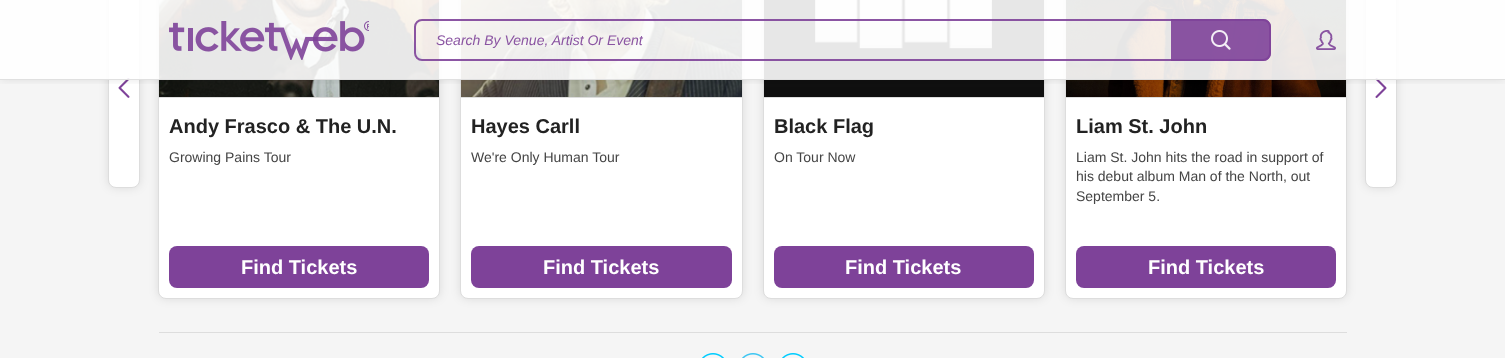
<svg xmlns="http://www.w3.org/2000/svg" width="1505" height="358">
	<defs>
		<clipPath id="clip1"><rect x="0" y="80" width="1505" height="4" /></clipPath>
	</defs>
	<rect width="100%" height="100%" fill="#F5F5F5" />
	<rect x="108" y="-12" width="32" height="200" rx="8" fill="#000000" fill-opacity="0.1" filter="blur(5px)" />
	<rect x="108.5" y="-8.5" width="31" height="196" rx="7.5" fill="#FFFFFF" stroke="#DDDDDD" />
	<image x="118" y="78" width="12" height="20" href="assets/img4.png" />
	<rect x="158" y="-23" width="282" height="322" rx="8" fill="#000000" fill-opacity="0.1" filter="blur(5px)" />
	<rect x="158.5" y="-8.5" width="281" height="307" rx="7.5" fill="#FFFFFF" stroke="#DDDDDD" />
	<image x="159" y="0" width="280" height="97" href="assets/img5.png" />
	<rect x="460" y="-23" width="283" height="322" rx="8" fill="#000000" fill-opacity="0.1" filter="blur(5px)" />
	<rect x="460.5" y="-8.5" width="282" height="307" rx="7.5" fill="#FFFFFF" stroke="#DDDDDD" />
	<image x="461" y="0" width="281" height="97" href="assets/img6.png" />
	<rect x="763" y="-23" width="282" height="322" rx="8" fill="#000000" fill-opacity="0.1" filter="blur(5px)" />
	<rect x="763.5" y="-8.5" width="281" height="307" rx="7.5" fill="#FFFFFF" stroke="#DDDDDD" />
	<image x="764" y="0" width="280" height="97" href="assets/img7.png" />
	<rect x="1065" y="-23" width="282" height="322" rx="8" fill="#000000" fill-opacity="0.1" filter="blur(5px)" />
	<rect x="1065.5" y="-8.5" width="281" height="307" rx="7.5" fill="#FFFFFF" stroke="#DDDDDD" />
	<image x="1066" y="0" width="280" height="97" href="assets/img8.png" />
	<rect x="1365" y="-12" width="32" height="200" rx="8" fill="#000000" fill-opacity="0.1" filter="blur(5px)" />
	<rect x="1365.5" y="-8.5" width="31" height="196" rx="7.5" fill="#FFFFFF" stroke="#DDDDDD" />
	<image x="1375" y="78" width="12" height="20" href="assets/img9.png" />
	<g clip-path="url(#clip1)">
		<rect x="0" y="0" width="1505" height="80" fill="#000000" fill-opacity="0.09" filter="blur(5px)" />
	</g>
	<rect x="0" y="0" width="1505" height="80" fill="#FFFFFF" fill-opacity="0.9" />
	<rect x="0" y="79" width="1505" height="1" fill="#DDDDDD" fill-opacity="0.9" />
	<image x="169" y="21" width="200" height="39" href="assets/img1.png" />
	<rect x="415" y="20" width="855" height="40" rx="7" fill="none" stroke="#7E4299" stroke-opacity="0.9" stroke-width="2" />
	<text x="436" y="45" font-family="Liberation Sans" font-size="14" font-style="italic" fill="#8A54A2">Search By Venue, Artist Or Event</text>
	<path d="M1171 19H1263C1267.5 19 1271 22.5 1271 27V53C1271 57.5 1267.5 61 1263 61H1171Z" fill="#7E4299" fill-opacity="0.9" />
	<image x="1211" y="30" width="20" height="20" href="assets/img2.png" />
	<image x="1316" y="30" width="20" height="20" href="assets/img3.png" />
	<rect x="159" y="97" width="280" height="1" fill="#DDDDDD" />
	<text x="169" y="133" font-family="Liberation Sans" font-size="20" font-weight="700" fill="#222222">Andy Frasco &amp; The U.N.</text>
	<text x="169" y="162" font-family="Liberation Sans" font-size="14" fill="#444444">Growing Pains Tour</text>
	<rect x="169" y="246" width="260" height="42" rx="8" fill="#7E4299" />
	<text x="241" y="274" font-family="Liberation Sans" font-size="20" font-weight="700" fill="#FFFFFF">Find Tickets</text>
	<rect x="461" y="97" width="281" height="1" fill="#DDDDDD" />
	<text x="471" y="133" font-family="Liberation Sans" font-size="20" font-weight="700" fill="#222222">Hayes Carll</text>
	<text x="471" y="162" font-family="Liberation Sans" font-size="14" fill="#444444">We're Only Human Tour</text>
	<rect x="471" y="246" width="261" height="42" rx="8" fill="#7E4299" />
	<text x="543" y="274" font-family="Liberation Sans" font-size="20" font-weight="700" fill="#FFFFFF">Find Tickets</text>
	<rect x="764" y="97" width="280" height="1" fill="#DDDDDD" />
	<text x="774" y="133" font-family="Liberation Sans" font-size="20" font-weight="700" fill="#222222">Black Flag</text>
	<text x="774" y="162" font-family="Liberation Sans" font-size="14" fill="#444444">On Tour Now</text>
	<rect x="774" y="246" width="260" height="42" rx="8" fill="#7E4299" />
	<text x="845" y="274" font-family="Liberation Sans" font-size="20" font-weight="700" fill="#FFFFFF">Find Tickets</text>
	<rect x="1066" y="97" width="280" height="1" fill="#DDDDDD" />
	<text x="1076" y="133" font-family="Liberation Sans" font-size="20" font-weight="700" fill="#222222">Liam St. John</text>
	<g font-family="Liberation Sans" font-size="14" fill="#444444">
		<text x="1076" y="162">Liam St. John hits the road in support of</text>
		<text x="1076" y="181">his debut album Man of the North, out</text>
		<text x="1076" y="201">September 5.</text>
	</g>
	<rect x="1076" y="246" width="260" height="42" rx="8" fill="#7E4299" />
	<text x="1148" y="274" font-family="Liberation Sans" font-size="20" font-weight="700" fill="#FFFFFF">Find Tickets</text>
	<rect x="159" y="332" width="1188" height="1" fill="#DDDDDD" />
	<image x="702" y="353" width="22" height="5" href="assets/img10.png" />
	<image x="742" y="353" width="22" height="5" href="assets/img11.png" />
	<image x="782" y="353" width="22" height="5" href="assets/img10.png" />
</svg>
